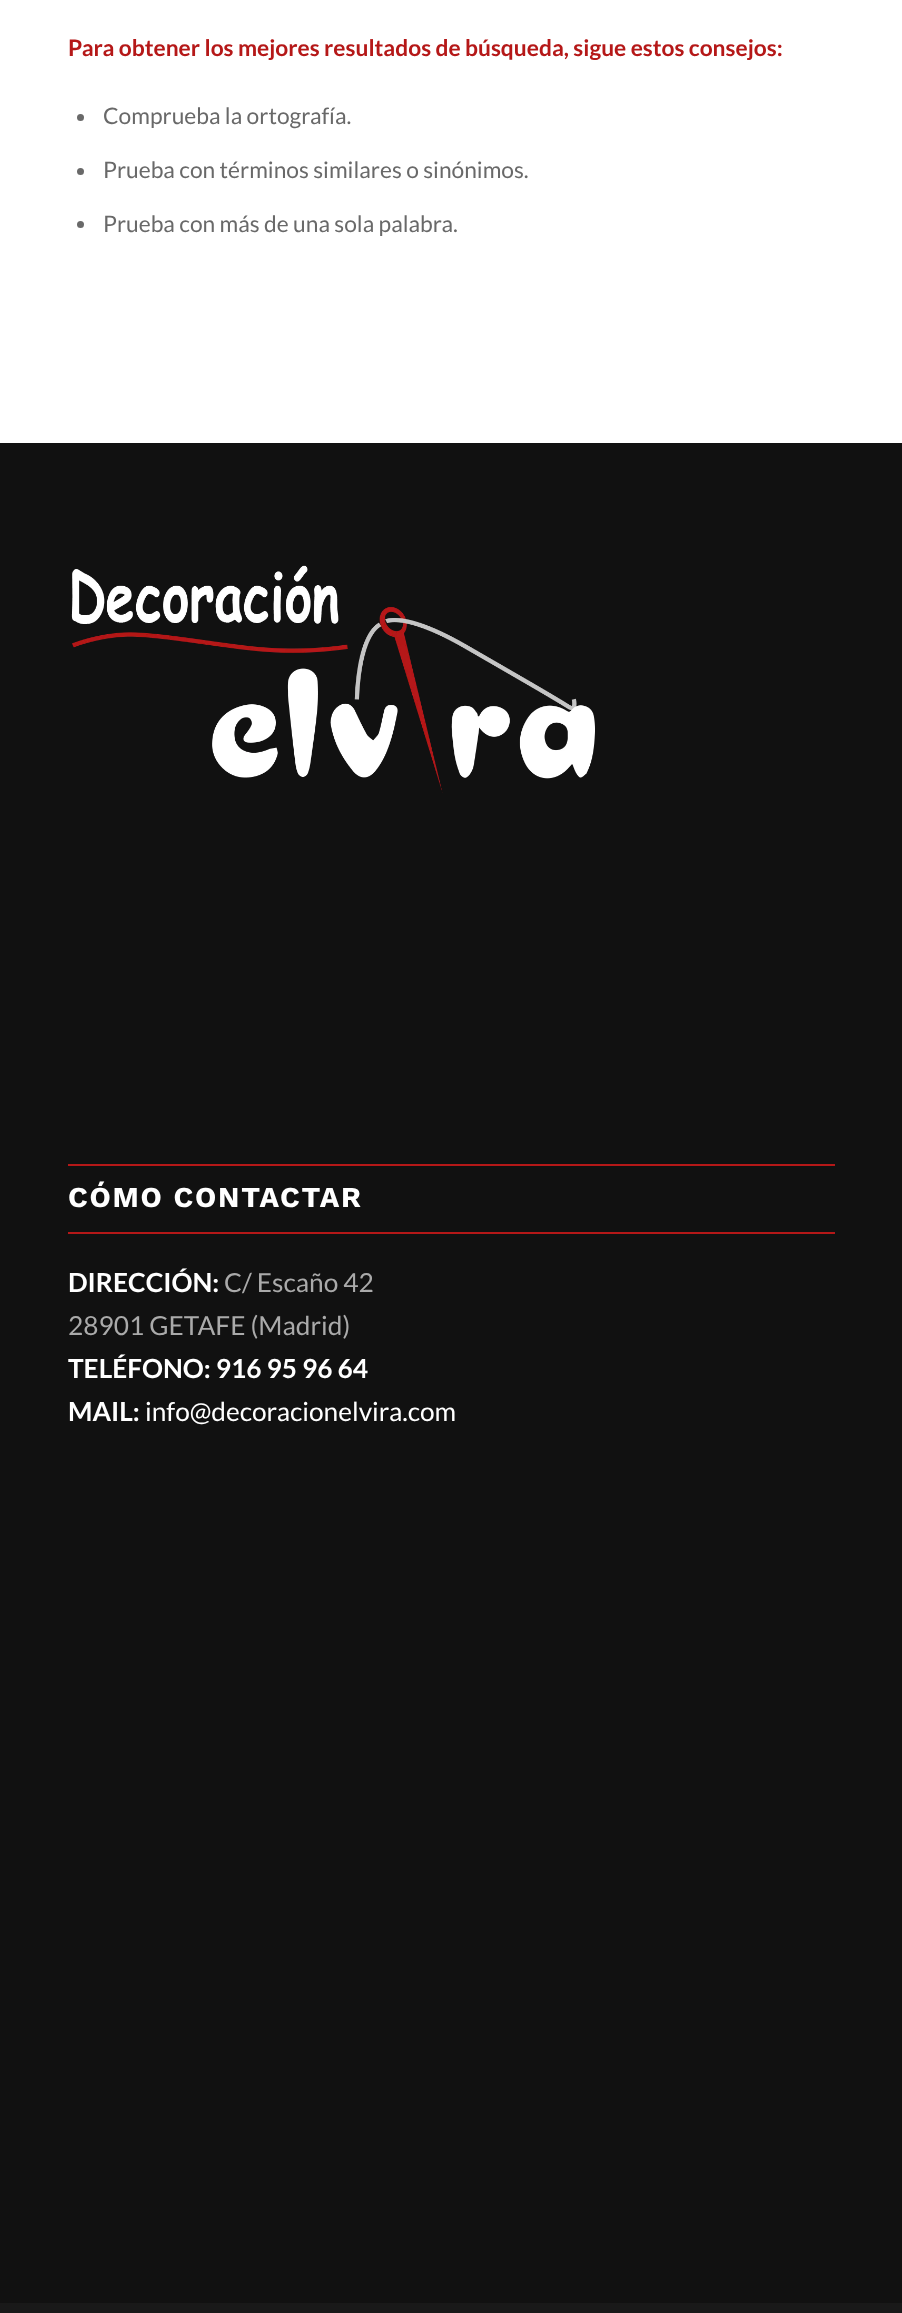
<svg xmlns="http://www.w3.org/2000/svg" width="902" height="2313">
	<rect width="100%" height="100%" fill="#FFFFFF" />
	<text x="68" y="56" font-family="Lato" font-size="22.75" font-weight="700" fill="#B51818">Para obtener los mejores resultados de búsqueda, sigue estos consejos:</text>
	<circle cx="80.5" cy="117.5" r="3.5" fill="#696969" />
	<text x="103" y="124" font-family="Lato" font-size="22.75" fill="#696969">Comprueba la ortografía.</text>
	<circle cx="80.5" cy="171.5" r="3.5" fill="#696969" />
	<text x="103" y="178" font-family="Lato" font-size="22.75" fill="#696969">Prueba con términos similares o sinónimos.</text>
	<circle cx="80.5" cy="224.5" r="3.5" fill="#696969" />
	<text x="103" y="232" font-family="Lato" font-size="22.75" fill="#696969">Prueba con más de una sola palabra.</text>
	<rect x="0" y="443" width="902" height="1860" fill="#111111" />
	<image x="71" y="565" width="524" height="228" href="assets/img1.png" />
	<rect x="68" y="1164" width="767" height="2" fill="#B51818" />
	<rect x="68" y="1232" width="767" height="2" fill="#B51818" />
	<text x="68" y="1207" font-family="Work Sans" font-size="28.9" font-weight="700" letter-spacing="1.75" fill="#FFFFFF">CÓMO CONTACTAR</text>
	<text x="68" y="1292" font-family="Lato" font-size="26.25" font-weight="700" fill="#FFFFFF">DIRECCIÓN:</text>
	<g font-family="Lato" font-size="26.25" fill="#AAAAAA">
		<text x="224" y="1292">C/ Escaño 42</text>
		<text x="68" y="1335">28901 GETAFE (Madrid)</text>
	</g>
	<g font-family="Lato" font-size="26.25" font-weight="700" fill="#FFFFFF">
		<text x="68" y="1378">TELÉFONO: 916 95 96 64</text>
		<text x="68" y="1421">MAIL:</text>
	</g>
	<text x="145" y="1421" font-family="Lato" font-size="26.25" fill="#FFFFFF">info@decoracionelvira.com</text>
	<rect x="0" y="2303" width="902" height="10" fill="#191919" />
</svg>
